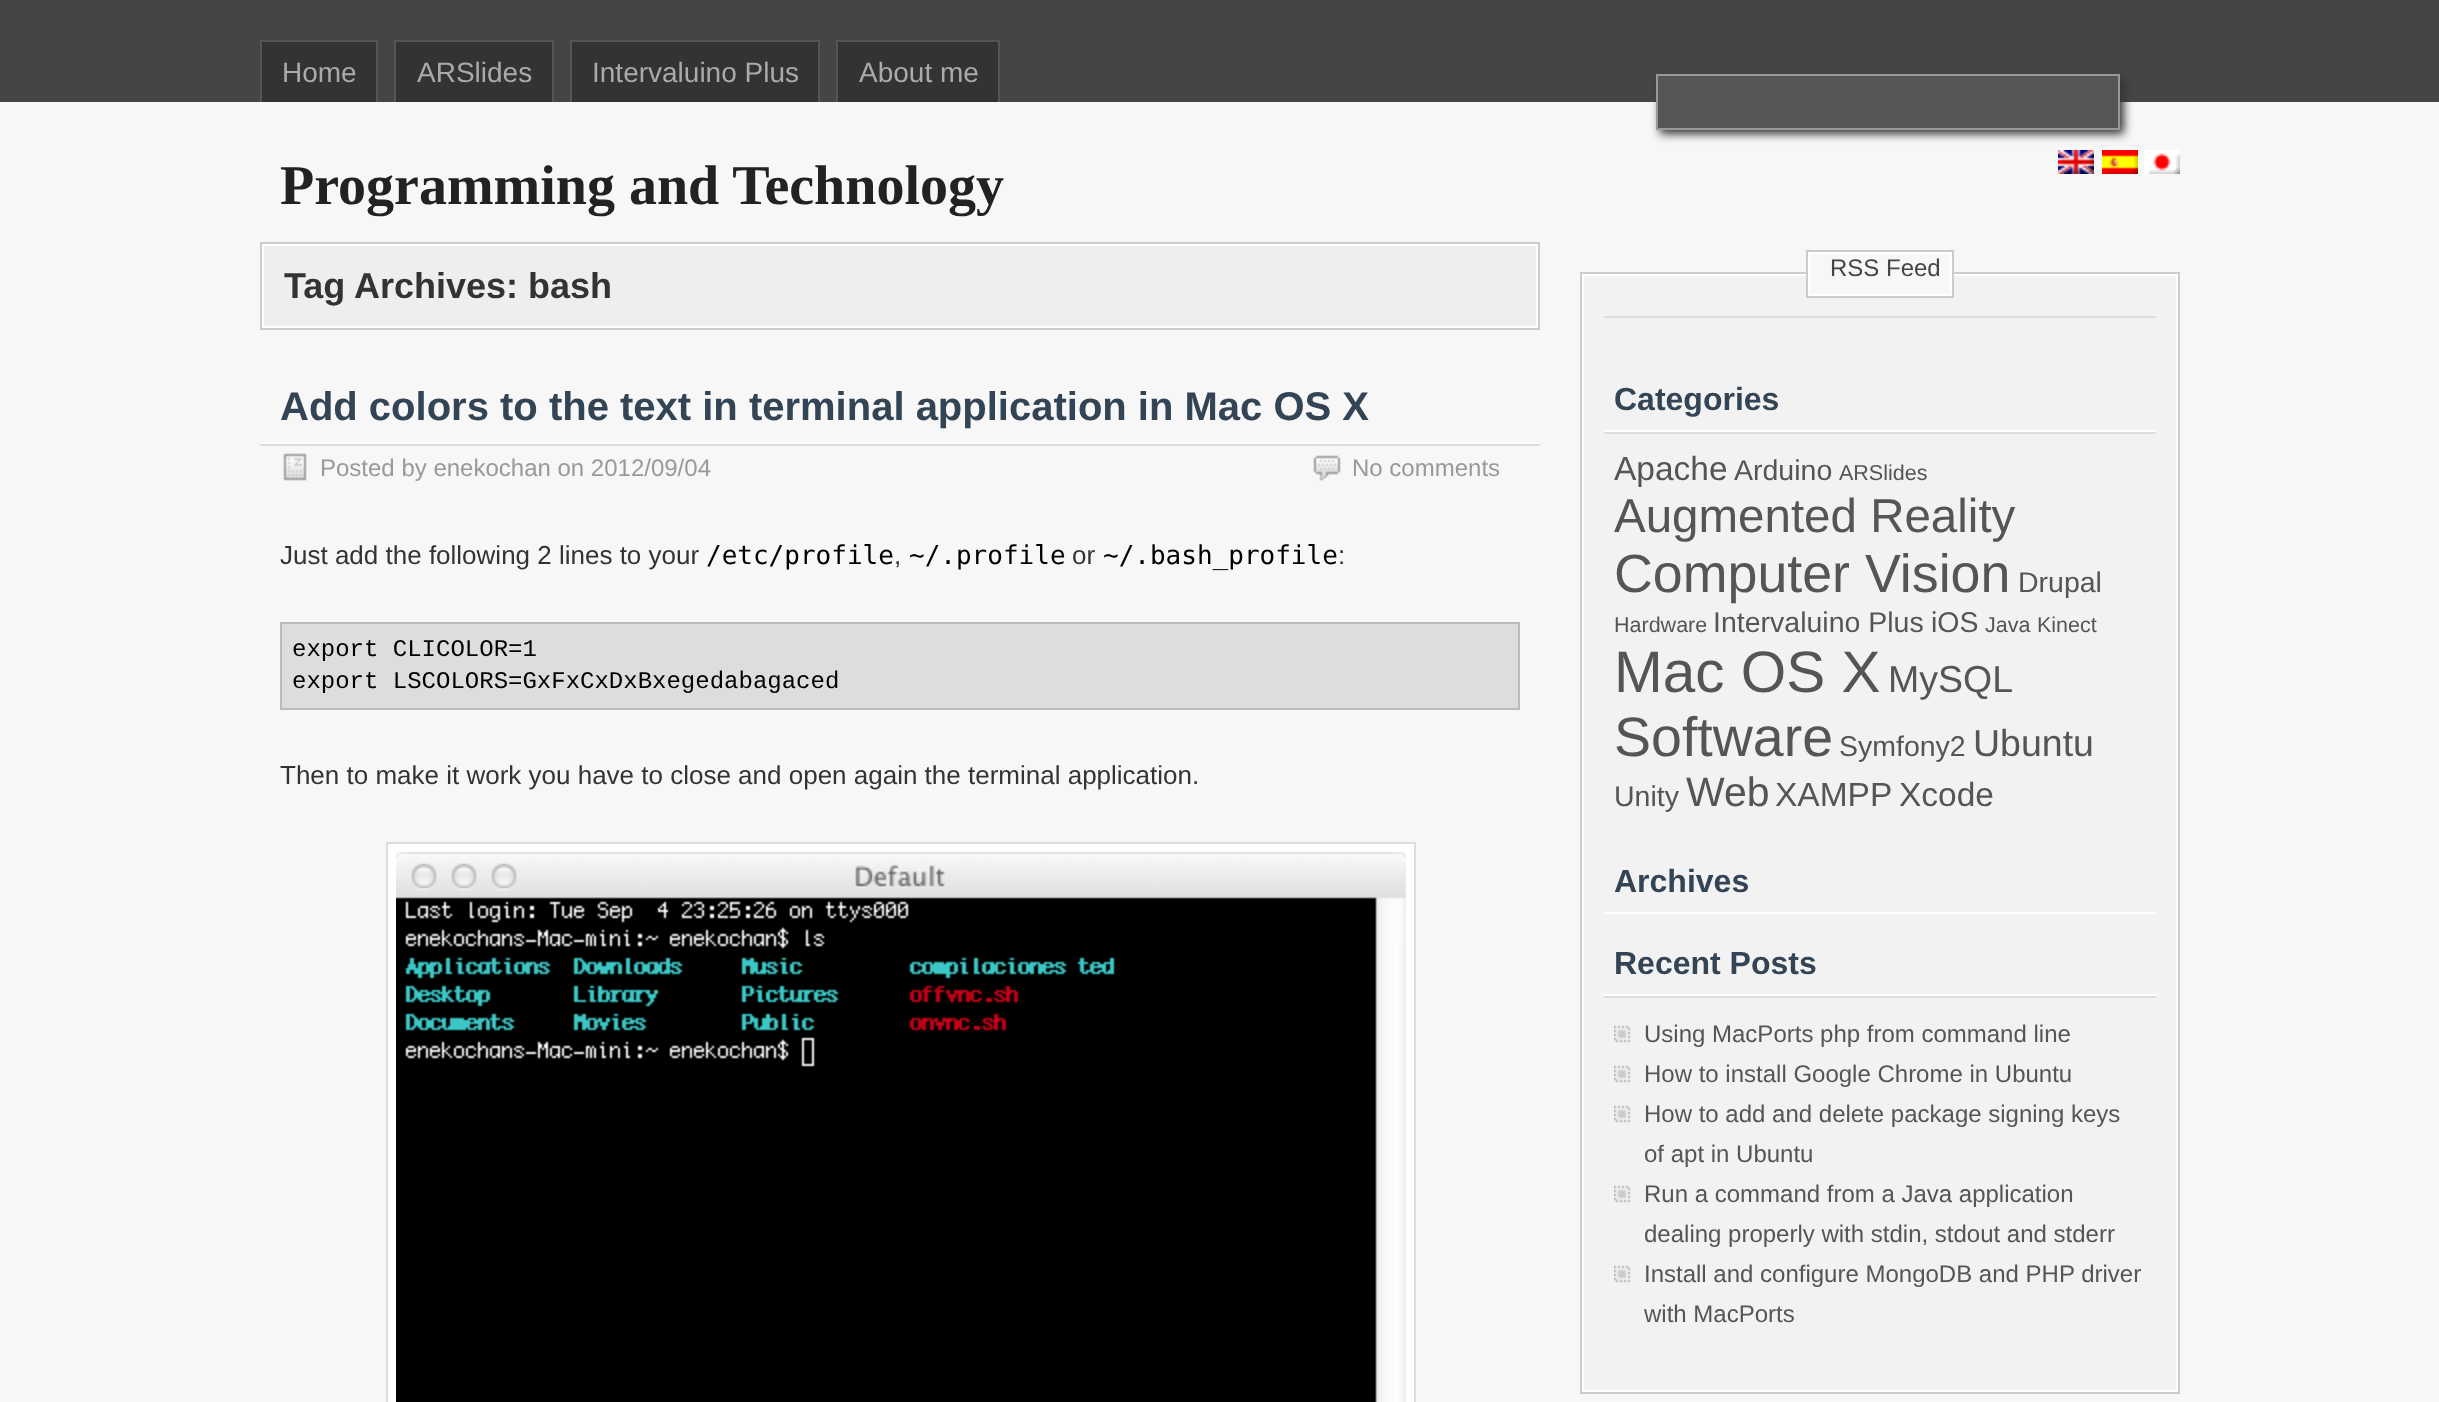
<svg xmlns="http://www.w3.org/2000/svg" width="2439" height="1402">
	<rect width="100%" height="100%" fill="#F7F7F7" />
	<rect x="0" y="0" width="2439" height="102" fill="#454546" />
	<rect x="262" y="42" width="114" height="60" fill="#333333" />
	<rect x="260" y="40" width="118" height="2" fill="#555555" />
	<rect x="376" y="40" width="2" height="62" fill="#555555" />
	<rect x="260" y="40" width="2" height="62" fill="#555555" />
	<text x="282" y="82" font-family="Liberation Sans" font-size="28" fill="#ABAAAA">Home</text>
	<rect x="396" y="42" width="156" height="60" fill="#333333" />
	<rect x="394" y="40" width="160" height="2" fill="#555555" />
	<rect x="552" y="40" width="2" height="62" fill="#555555" />
	<rect x="394" y="40" width="2" height="62" fill="#555555" />
	<text x="417" y="82" font-family="Liberation Sans" font-size="28" fill="#ABAAAA">ARSlides</text>
	<rect x="572" y="42" width="246" height="60" fill="#333333" />
	<rect x="570" y="40" width="250" height="2" fill="#555555" />
	<rect x="818" y="40" width="2" height="62" fill="#555555" />
	<rect x="570" y="40" width="2" height="62" fill="#555555" />
	<text x="592" y="82" font-family="Liberation Sans" font-size="28" fill="#ABAAAA">Intervaluino Plus</text>
	<rect x="838" y="42" width="160" height="60" fill="#333333" />
	<rect x="836" y="40" width="164" height="2" fill="#555555" />
	<rect x="998" y="40" width="2" height="62" fill="#555555" />
	<rect x="836" y="40" width="2" height="62" fill="#555555" />
	<text x="859" y="82" font-family="Liberation Sans" font-size="28" fill="#ABAAAA">About me</text>
	<rect x="1660" y="78" width="464" height="56" fill="#333333" filter="blur(5px)" />
	<rect x="1657" y="75" width="462" height="54" fill="#565657" stroke="#999999" stroke-width="2" />
	<image x="2058" y="150" width="36" height="24" href="assets/img1.png" />
	<image x="2102" y="150" width="36" height="24" href="assets/img2.png" />
	<image x="2144" y="150" width="36" height="24" href="assets/img3.png" />
	<text x="280" y="204" font-family="Liberation Serif" font-size="56" font-weight="700" fill="#222222">Programming and Technology</text>
	<rect x="264" y="246" width="1272" height="80" fill="#EEEEEE" />
	<rect x="261" y="243" width="1278" height="86" fill="none" stroke="#CCCCCC" stroke-width="2" />
	<rect x="263" y="245" width="1274" height="82" fill="none" stroke="#FFFFFF" stroke-width="2" />
	<text x="284" y="298" font-family="Liberation Sans" font-size="36" font-weight="700" fill="#333333">Tag Archives: bash</text>
	<rect x="260" y="442" width="1280" height="2" fill="#FAFAFA" />
	<text x="280" y="420" font-family="Liberation Sans" font-size="40" font-weight="700" fill="#334455">Add colors to the text in terminal application in Mac OS X</text>
	<rect x="260" y="444" width="1280" height="2" fill="#DDDDDD" />
	<image x="283" y="453" width="24" height="28" href="assets/img4.png" />
	<text x="320" y="476" font-family="Liberation Sans" font-size="24" fill="#999999">Posted by enekochan on 2012/09/04</text>
	<image x="1313" y="455" width="28" height="26" href="assets/img5.png" />
	<text x="1352" y="476" font-family="Liberation Sans" font-size="24" fill="#999999">No comments</text>
	<text x="280" y="564" font-family="Liberation Sans" font-size="26" fill="#333333">Just add the following 2 lines to your</text>
	<text x="706" y="564" font-family="DejaVu Sans Mono" font-size="26" fill="#000000">/etc/profile</text>
	<text x="894" y="564" font-family="Liberation Sans" font-size="26" fill="#333333">,</text>
	<text x="909" y="564" font-family="DejaVu Sans Mono" font-size="26" fill="#000000">~/.profile</text>
	<text x="1072" y="564" font-family="Liberation Sans" font-size="26" fill="#333333">or</text>
	<text x="1103" y="564" font-family="DejaVu Sans Mono" font-size="26" fill="#000000">~/.bash_profile</text>
	<text x="1338" y="564" font-family="Liberation Sans" font-size="26" fill="#333333">:</text>
	<rect x="281" y="623" width="1238" height="86" fill="#DDDDDD" stroke="#BBBBBB" stroke-width="2" />
	<g font-family="Liberation Mono" font-size="24" fill="#000000">
		<text x="292" y="656">export CLICOLOR=1</text>
		<text x="292" y="688">export LSCOLORS=GxFxCxDxBxegedabagaced</text>
	</g>
	<text x="280" y="784" font-family="Liberation Sans" font-size="26" fill="#333333">Then to make it work you have to close and open again the terminal application.</text>
	<rect x="387" y="843" width="1028" height="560" fill="#FFFFFF" stroke="#DDDDDD" stroke-width="2" />
	<image x="396" y="852" width="1010" height="550" href="assets/img6.png" />
	<rect x="1584" y="276" width="592" height="1114" fill="#F2F2F2" />
	<rect x="1581" y="273" width="598" height="1120" fill="none" stroke="#CCCCCC" stroke-width="2" />
	<rect x="1583" y="275" width="594" height="1116" fill="none" stroke="#FFFFFF" stroke-width="2" />
	<rect x="1807" y="251" width="146" height="46" fill="none" stroke="#CCCCCC" stroke-width="2" />
	<rect x="1810" y="272" width="140" height="22" fill="#F7F7F7" />
	<rect x="1809" y="253" width="142" height="42" fill="none" stroke="#FFFFFF" stroke-width="2" />
	<text x="1830" y="276" font-family="Liberation Sans" font-size="24" fill="#464646">RSS Feed</text>
	<rect x="1604" y="316" width="552" height="2" fill="#DDDDDD" />
	<rect x="1604" y="430" width="552" height="2" fill="#FFFFFF" />
	<text x="1614" y="410" font-family="Liberation Sans" font-size="32" font-weight="700" fill="#334455">Categories</text>
	<rect x="1604" y="432" width="552" height="2" fill="#DDDDDD" />
	<text x="1614" y="480" font-family="Liberation Sans" font-size="33.5" fill="#555555">Apache</text>
	<text x="1734" y="480" font-family="Liberation Sans" font-size="28.5" fill="#555555">Arduino</text>
	<text x="1839" y="480" font-family="Liberation Sans" font-size="21.5" fill="#555555">ARSlides</text>
	<text x="1614" y="532" font-family="Liberation Sans" font-size="47.5" fill="#555555">Augmented Reality</text>
	<text x="1614" y="592" font-family="Liberation Sans" font-size="53.75" fill="#555555">Computer Vision</text>
	<text x="2018" y="592" font-family="Liberation Sans" font-size="28.5" fill="#555555">Drupal</text>
	<text x="1614" y="632" font-family="Liberation Sans" font-size="21.5" fill="#555555">Hardware</text>
	<g font-family="Liberation Sans" font-size="28.5" fill="#555555">
		<text x="1713" y="632">Intervaluino Plus</text>
		<text x="1931" y="632">iOS</text>
	</g>
	<g font-family="Liberation Sans" font-size="21.5" fill="#555555">
		<text x="1985" y="632">Java</text>
		<text x="2037" y="632">Kinect</text>
	</g>
	<text x="1614" y="692" font-family="Liberation Sans" font-size="58.5" fill="#555555">Mac OS X</text>
	<text x="1888" y="692" font-family="Liberation Sans" font-size="37.5" fill="#555555">MySQL</text>
	<text x="1614" y="756" font-family="Liberation Sans" font-size="55.5" fill="#555555">Software</text>
	<text x="1839" y="756" font-family="Liberation Sans" font-size="28.5" fill="#555555">Symfony2</text>
	<text x="1973" y="756" font-family="Liberation Sans" font-size="37.5" fill="#555555">Ubuntu</text>
	<text x="1614" y="806" font-family="Liberation Sans" font-size="28.5" fill="#555555">Unity</text>
	<text x="1686" y="806" font-family="Liberation Sans" font-size="41" fill="#555555">Web</text>
	<g font-family="Liberation Sans" font-size="33.5" fill="#555555">
		<text x="1775" y="806">XAMPP</text>
		<text x="1899" y="806">Xcode</text>
	</g>
	<rect x="1604" y="912" width="552" height="2" fill="#FFFFFF" />
	<text x="1614" y="892" font-family="Liberation Sans" font-size="32" font-weight="700" fill="#334455">Archives</text>
	<rect x="1604" y="994" width="552" height="2" fill="#FFFFFF" />
	<text x="1614" y="974" font-family="Liberation Sans" font-size="32" font-weight="700" fill="#334455">Recent Posts</text>
	<rect x="1604" y="996" width="552" height="2" fill="#DDDDDD" />
	<image x="1614" y="1025" width="17" height="18" href="assets/img7.png" />
	<text x="1644" y="1042" font-family="Liberation Sans" font-size="24" fill="#555555">Using MacPorts php from command line</text>
	<image x="1614" y="1065" width="17" height="18" href="assets/img7.png" />
	<text x="1644" y="1082" font-family="Liberation Sans" font-size="24" fill="#555555">How to install Google Chrome in Ubuntu</text>
	<image x="1614" y="1105" width="17" height="18" href="assets/img7.png" />
	<g font-family="Liberation Sans" font-size="24" fill="#555555">
		<text x="1644" y="1122">How to add and delete package signing keys</text>
		<text x="1644" y="1162">of apt in Ubuntu</text>
	</g>
	<image x="1614" y="1185" width="17" height="18" href="assets/img7.png" />
	<g font-family="Liberation Sans" font-size="24" fill="#555555">
		<text x="1644" y="1202">Run a command from a Java application</text>
		<text x="1644" y="1242">dealing properly with stdin, stdout and stderr</text>
	</g>
	<image x="1614" y="1265" width="17" height="18" href="assets/img7.png" />
	<g font-family="Liberation Sans" font-size="24" fill="#555555">
		<text x="1644" y="1282">Install and configure MongoDB and PHP driver</text>
		<text x="1644" y="1322">with MacPorts</text>
	</g>
</svg>
